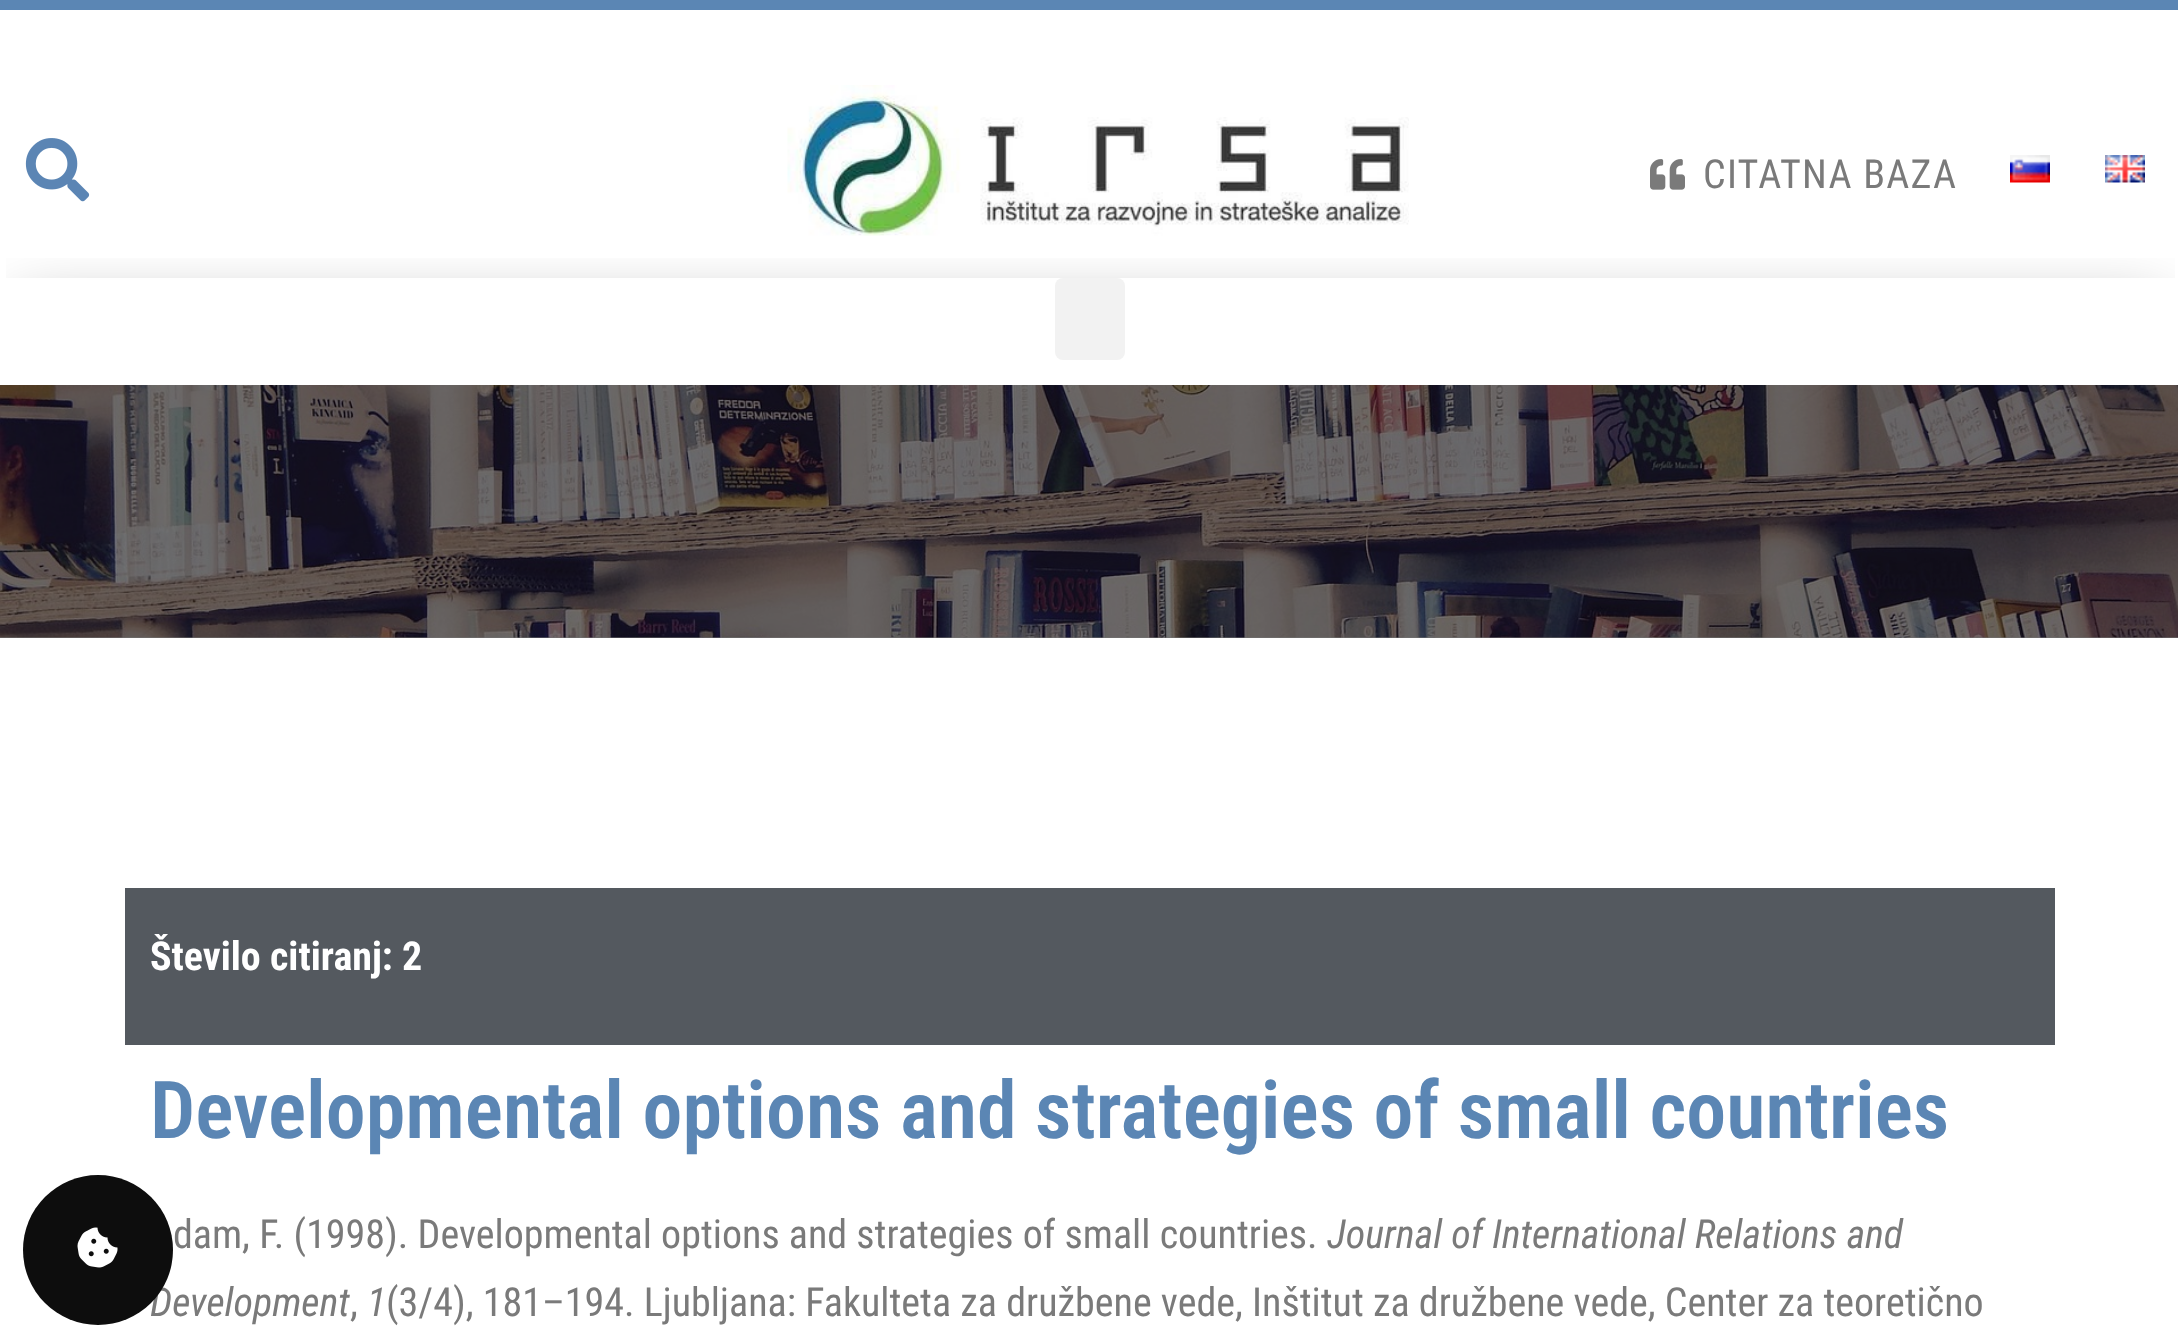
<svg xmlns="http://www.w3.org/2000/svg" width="2178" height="1337">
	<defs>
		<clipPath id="clip1"><rect x="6" y="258" width="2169" height="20" /></clipPath>
	</defs>
	<rect width="100%" height="100%" fill="#FFFFFF" />
	<rect x="0" y="0" width="2178" height="10" fill="#5B86B4" />
	<image x="25" y="138" width="65" height="64" href="assets/img1.png" />
	<image x="787" y="85" width="622" height="151" href="assets/img2.png" />
	<image x="1650" y="159" width="35" height="31" href="assets/img3.png" />
	<text x="1703" y="188" font-family="Roboto Condensed" font-size="40" letter-spacing="1.25" fill="#7A7A7A">CITATNA BAZA</text>
	<image x="2010" y="155" width="40" height="28" href="assets/img4.png" />
	<image x="2105" y="155" width="40" height="28" href="assets/img5.png" />
	<g clip-path="url(#clip1)">
		<rect x="18" y="308" width="2145" height="72" fill="#000000" fill-opacity="0.37" filter="blur(31px)" />
	</g>
	<rect x="1055" y="278" width="70" height="82" rx="8" fill="#F2F2F2" />
	<text x="150" y="1316" font-family="Roboto Condensed" font-size="40" font-style="italic" fill="#7A7A7A">Development</text>
	<circle cx="98" cy="1250" r="75" fill="#0D0D0D" />
	<image x="77" y="1227" width="41" height="41" href="assets/img6.png" />
	<image x="0" y="385" width="2178" height="253" href="assets/img7.png" />
	<rect x="0" y="385" width="2178" height="253" fill="#000000" fill-opacity="0.54" />
	<rect x="125" y="888" width="1930" height="157" fill="#54595F" />
	<text x="150" y="970" font-family="Roboto Condensed" font-size="40" font-weight="700" fill="#FFFFFF">Število citiranj: 2</text>
	<text x="150" y="1138" font-family="Roboto Condensed" font-size="80" font-weight="600" fill="#5B86B4">Developmental options and strategies of small countries</text>
	<text x="173" y="1248" font-family="Roboto Condensed" font-size="40" fill="#7A7A7A">dam, F. (1998). Developmental options and strategies of small countries.</text>
	<text x="1327" y="1248" font-family="Roboto Condensed" font-size="40" font-style="italic" fill="#7A7A7A">Journal of International Relations and</text>
	<text x="350" y="1316" font-family="Roboto Condensed" font-size="40" fill="#7A7A7A">,</text>
	<text x="367" y="1316" font-family="Roboto Condensed" font-size="40" font-style="italic" fill="#7A7A7A">1</text>
	<text x="386" y="1316" font-family="Roboto Condensed" font-size="40" fill="#7A7A7A">(3/4), 181–194. Ljubljana: Fakulteta za družbene vede, Inštitut za družbene vede, Center za teoretično</text>
</svg>
